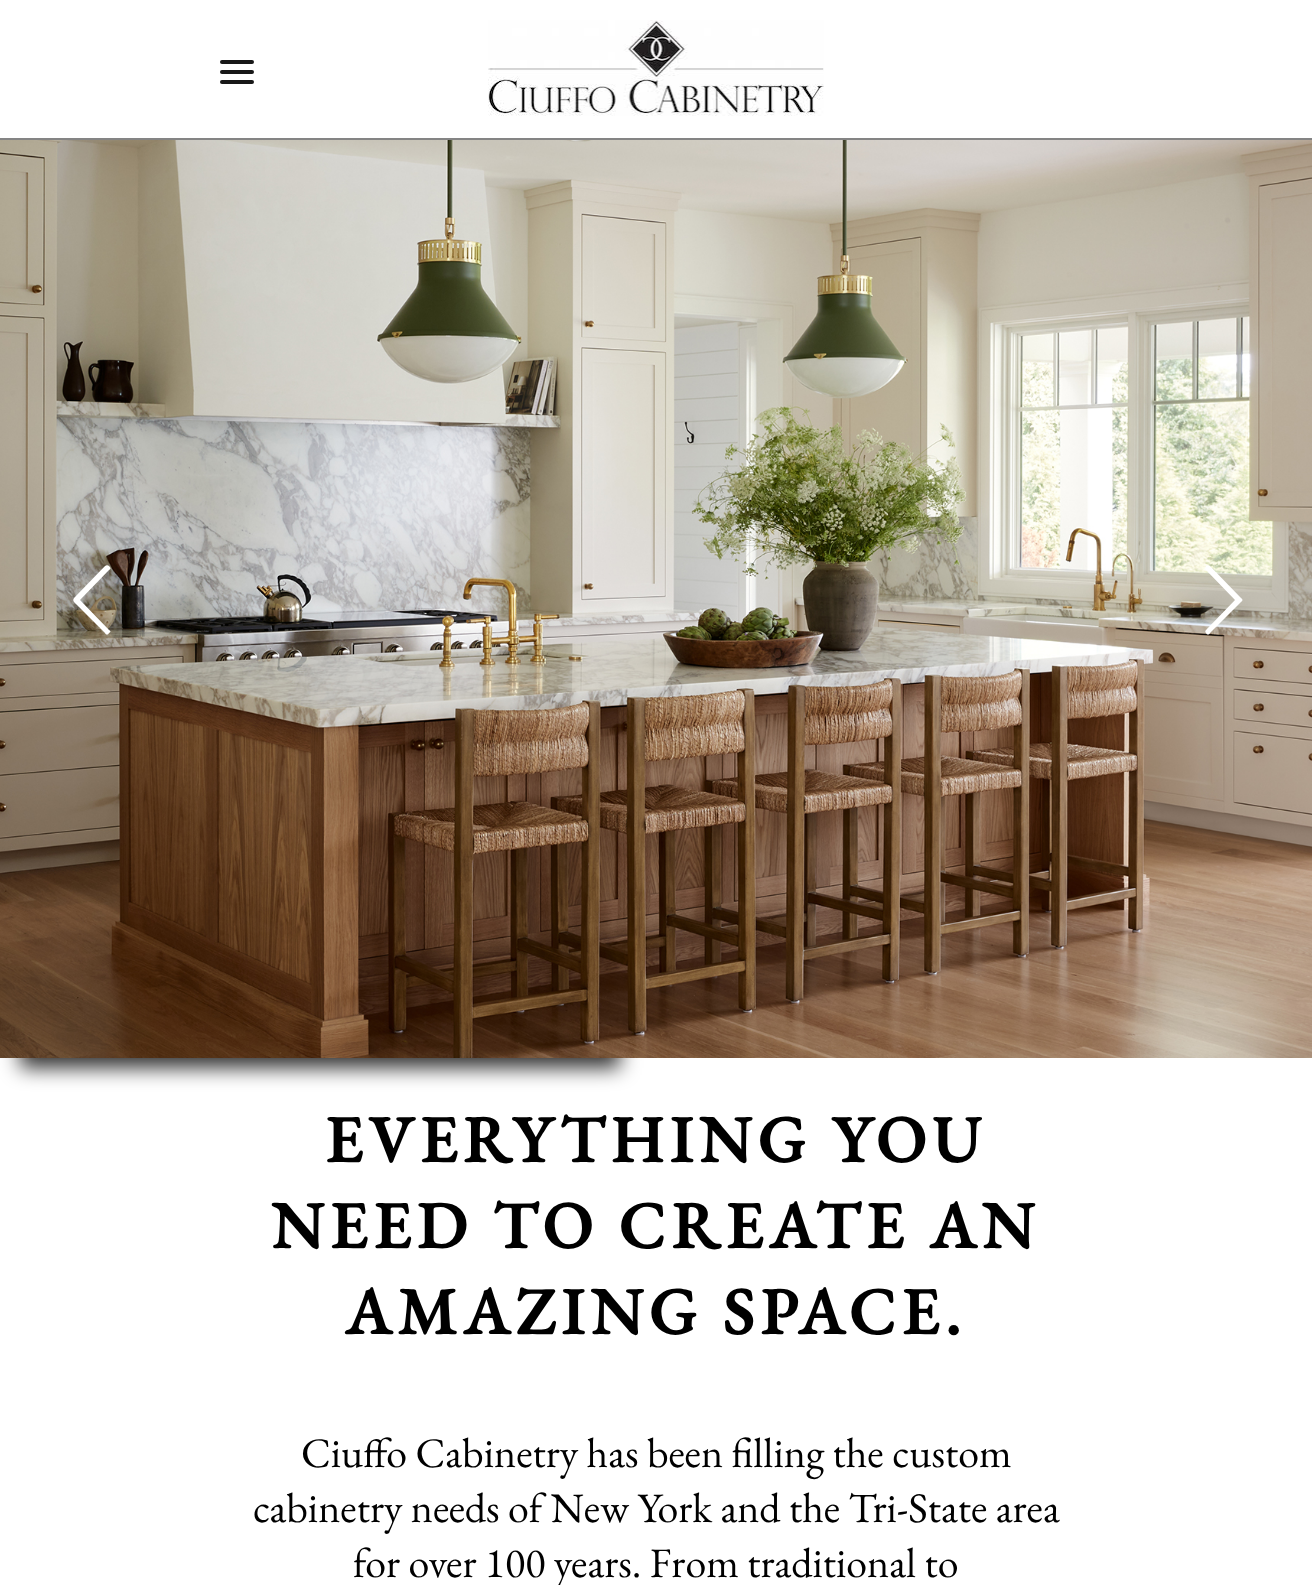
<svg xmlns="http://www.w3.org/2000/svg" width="1312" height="1585">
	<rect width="100%" height="100%" fill="#FFFFFF" />
	<rect x="0" y="138" width="1312" height="2" fill="#848484" />
	<rect x="220" y="60" width="34" height="4" rx="2" fill="#181818" />
	<rect x="220" y="70" width="34" height="4" rx="2" fill="#181818" />
	<rect x="220" y="80" width="34" height="4" rx="2" fill="#181818" />
	<image x="488" y="20" width="336" height="96" href="assets/img1.png" />
	<rect x="20" y="950" width="600" height="118" fill="#000000" fill-opacity="0.8" filter="blur(10px)" />
	<image x="0" y="140" width="1312" height="918" href="assets/img2.png" />
	<path d="M109 630C111 631 111 632 109 633C108 635 106 635 105 633L74 602C73 601 73 599 74 598L105 566C106 565 108 565 109 566C111 568 111 569 109 570L80 600Z" fill="#FFFFFF" />
	<path d="M1206 630L1235 600L1206 570C1205 569 1205 568 1206 566C1207 565 1209 565 1210 566L1241 598C1243 599 1243 601 1241 602L1210 633C1209 635 1207 635 1206 633C1205 632 1205 631 1206 630Z" fill="#FFFFFF" />
	<g font-family="EB Garamond" font-size="66" font-weight="700" letter-spacing="6" fill="#000000">
		<text x="325" y="1162">EVERYTHING YOU</text>
		<text x="271" y="1248">NEED TO CREATE AN</text>
		<text x="345" y="1334">AMAZING SPACE.</text>
	</g>
	<g font-family="EB Garamond" font-size="42" fill="#000000">
		<text x="301" y="1467">Ciuffo Cabinetry has been filling the custom</text>
		<text x="253" y="1522">cabinetry needs of New York and the Tri-State area</text>
		<text x="353" y="1577">for over 100 years. From traditional to</text>
	</g>
</svg>
